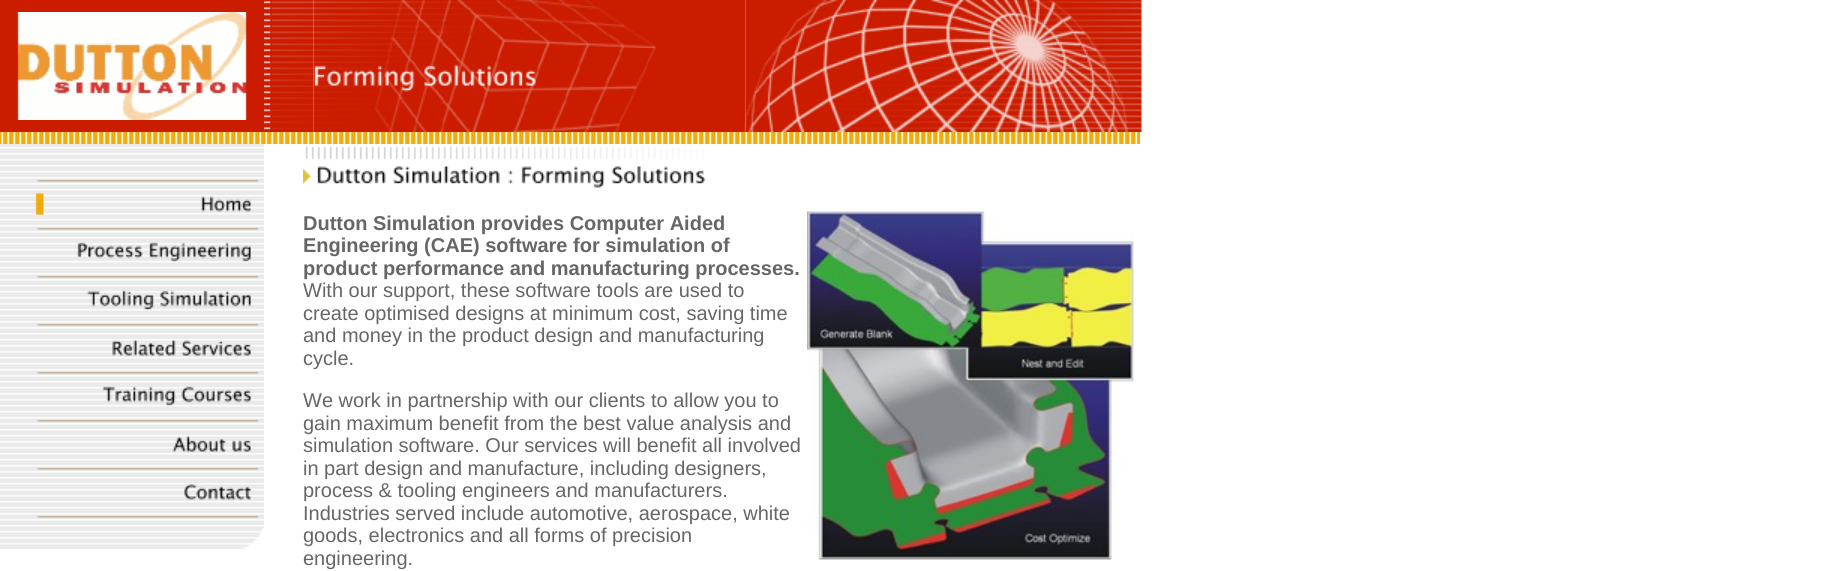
#include <cairo.h>
#include <math.h>
#include <stddef.h>

typedef struct { double x, y; const char *s; } line_t;

static void ink(cairo_t *ctx, unsigned color) {
    cairo_set_source_rgb(ctx, (color >> 16) / 255.0, (color >> 8 & 255) / 255.0, (color & 255) / 255.0);
}

static void paste(cairo_t *ctx, const char *path, double x, double y, double w, double h) {
    cairo_surface_t *image = cairo_image_surface_create_from_png(path);
    cairo_save(ctx);
    cairo_set_source_surface(ctx, image, x, y);
    cairo_rectangle(ctx, x, y, w, h);
    cairo_fill(ctx);
    cairo_restore(ctx);
    cairo_surface_destroy(image);
}

int main(void) {
    cairo_surface_t *surface = cairo_image_surface_create(CAIRO_FORMAT_RGB24, 1833, 571);
    cairo_t *ctx = cairo_create(surface);
    cairo_font_options_t *options = cairo_font_options_create();
    cairo_font_options_set_hint_metrics(options, CAIRO_HINT_METRICS_OFF);
    cairo_font_options_set_hint_style(options, CAIRO_HINT_STYLE_NONE);
    cairo_set_font_options(ctx, options);
    cairo_set_miter_limit(ctx, 4);
    ink(ctx, 0xFFFFFF);
    cairo_paint(ctx);
    ink(ctx, 0xCB1C00);
    cairo_rectangle(ctx, 0, 0, 12, 132);
    cairo_fill(ctx);
    cairo_rectangle(ctx, 12, 0, 240, 12);
    cairo_fill(ctx);
    paste(ctx, "media/1.png", 12, 12, 240, 108);
    cairo_rectangle(ctx, 12, 120, 240, 12);
    cairo_fill(ctx);
    cairo_rectangle(ctx, 252, 0, 12, 132);
    cairo_fill(ctx);
    paste(ctx, "media/2.png", 264, 0, 50, 132);
    paste(ctx, "media/3.png", 313, 0, 433, 48);
    paste(ctx, "media/4.png", 313, 48, 433, 60);
    paste(ctx, "media/5.png", 313, 108, 433, 24);
    paste(ctx, "media/6.png", 745, 0, 397, 132);
    paste(ctx, "media/7.png", 0, 132, 1140, 12);
    paste(ctx, "media/8.png", 0, 144, 264, 24);
    paste(ctx, "media/9.png", 0, 168, 264, 24);
    paste(ctx, "media/10.png", 0, 192, 264, 24);
    paste(ctx, "media/9.png", 0, 216, 264, 24);
    paste(ctx, "media/11.png", 0, 240, 264, 24);
    paste(ctx, "media/9.png", 0, 264, 264, 24);
    paste(ctx, "media/12.png", 0, 288, 264, 24);
    paste(ctx, "media/9.png", 0, 312, 264, 24);
    paste(ctx, "media/13.png", 0, 336, 264, 24);
    paste(ctx, "media/9.png", 0, 360, 264, 24);
    paste(ctx, "media/14.png", 0, 384, 264, 24);
    paste(ctx, "media/9.png", 0, 408, 264, 24);
    paste(ctx, "media/15.png", 0, 432, 264, 24);
    paste(ctx, "media/9.png", 0, 456, 264, 24);
    paste(ctx, "media/16.png", 0, 480, 264, 24);
    paste(ctx, "media/9.png", 0, 504, 264, 24);
    paste(ctx, "media/17.png", 0, 528, 263, 21);
    paste(ctx, "media/18.png", 303, 146, 403, 42);
    cairo_select_font_face(ctx, "Liberation Sans", CAIRO_FONT_SLANT_NORMAL, CAIRO_FONT_WEIGHT_BOLD);
    cairo_set_font_size(ctx, 20);
    ink(ctx, 0x666666);
    cairo_move_to(ctx, 303, 230);
    cairo_show_text(ctx, "Dutton Simulation provides Computer Aided");
    paste(ctx, "media/19.png", 807, 211, 327, 349);
    cairo_move_to(ctx, 303, 252);
    cairo_show_text(ctx, "Engineering (CAE) software for simulation of");
    cairo_move_to(ctx, 303, 275);
    cairo_show_text(ctx, "product performance and manufacturing processes.");
    cairo_select_font_face(ctx, "Liberation Sans", CAIRO_FONT_SLANT_NORMAL, CAIRO_FONT_WEIGHT_NORMAL);
    {
        static const line_t items[] = {
            {303, 297, "With our support, these software tools are used to"},
            {303, 320, "create optimised designs at minimum cost, saving time"},
            {303, 342, "and money in the product design and manufacturing"},
            {303, 365, "cycle."},
            {303, 407, "We work in partnership with our clients to allow you to"},
            {303, 430, "gain maximum benefit from the best value analysis and"},
            {303, 452, "simulation software. Our services will benefit all involved"},
            {303, 475, "in part design and manufacture, including designers,"},
            {303, 497, "process & tooling engineers and manufacturers."},
            {303, 520, "Industries served include automotive, aerospace, white"},
            {303, 542, "goods, electronics and all forms of precision"},
            {303, 565, "engineering."},
        };
        for (size_t i = 0; i < sizeof items / sizeof *items; i++) {
            cairo_move_to(ctx, items[i].x, items[i].y);
            cairo_show_text(ctx, items[i].s);
        }
    }
    cairo_surface_write_to_png(surface, "image.png");
    cairo_font_options_destroy(options);
    cairo_destroy(ctx);
    cairo_surface_destroy(surface);
    return 0;
}
